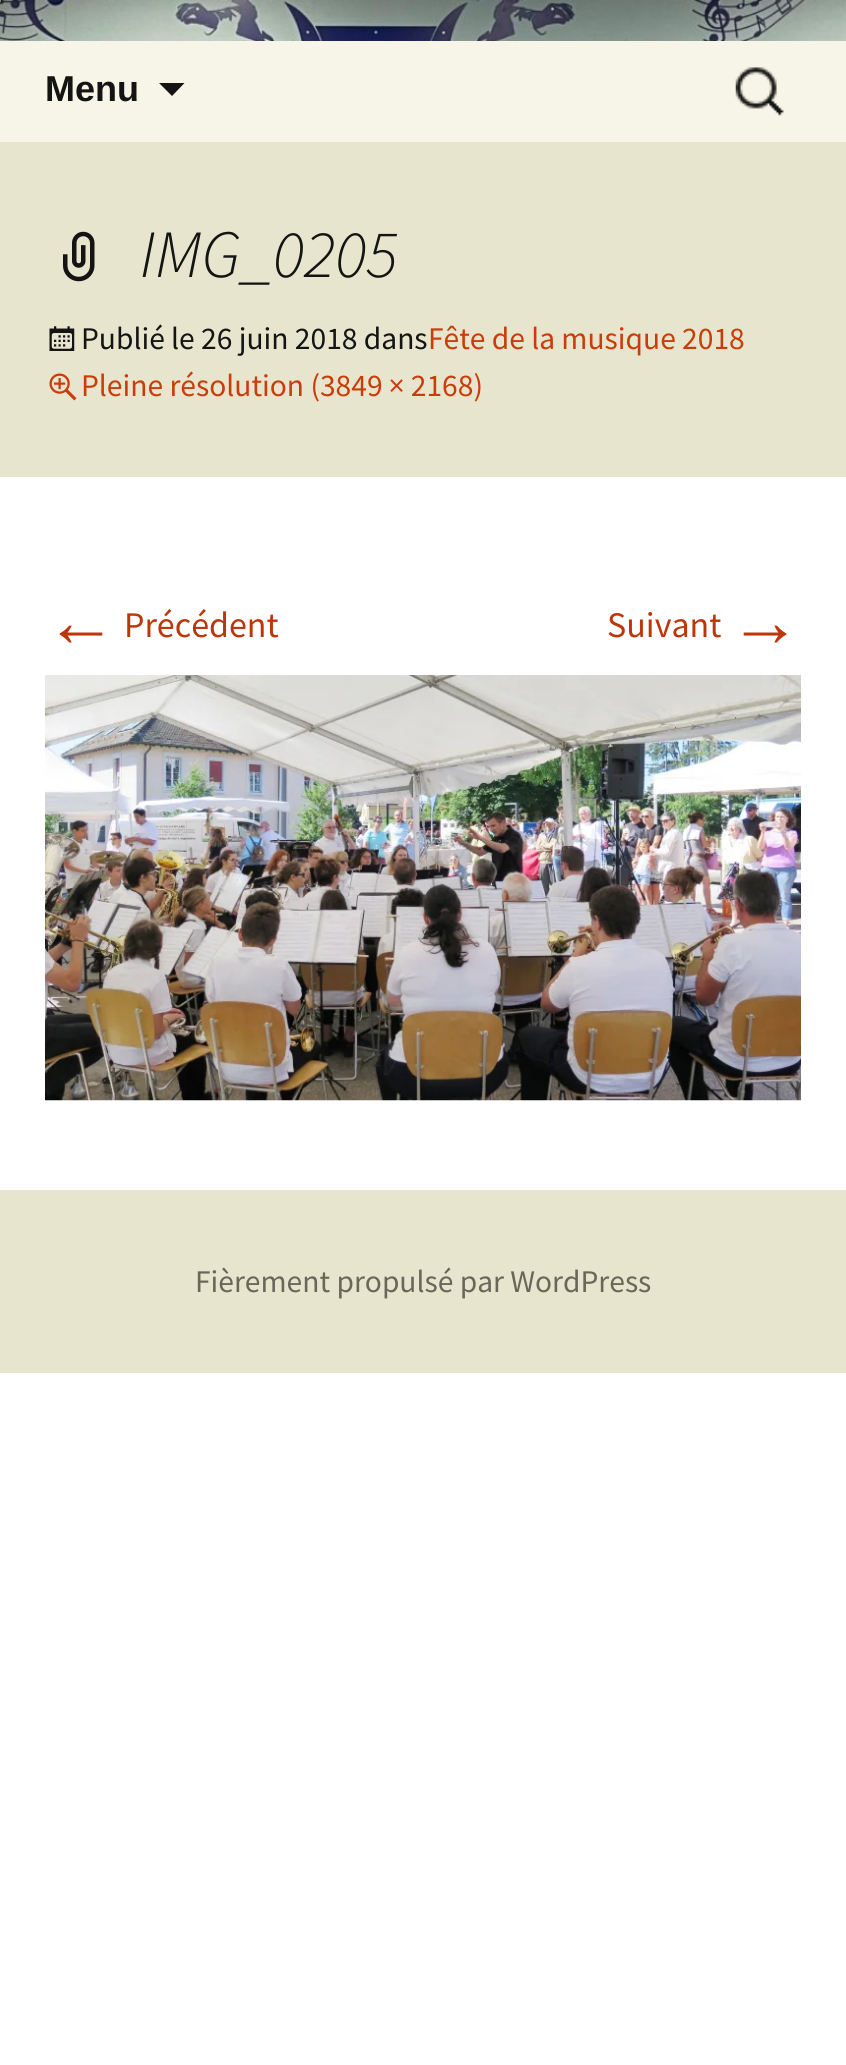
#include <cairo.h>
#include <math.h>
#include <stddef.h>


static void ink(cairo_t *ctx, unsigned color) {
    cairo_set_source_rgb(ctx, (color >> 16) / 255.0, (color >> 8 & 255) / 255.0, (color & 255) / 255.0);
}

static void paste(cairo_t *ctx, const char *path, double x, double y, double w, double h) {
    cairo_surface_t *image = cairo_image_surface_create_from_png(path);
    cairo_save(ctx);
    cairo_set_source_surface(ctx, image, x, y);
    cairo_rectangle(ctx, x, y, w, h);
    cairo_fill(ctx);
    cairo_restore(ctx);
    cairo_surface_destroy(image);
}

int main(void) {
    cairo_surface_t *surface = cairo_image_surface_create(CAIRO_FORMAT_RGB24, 846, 2065);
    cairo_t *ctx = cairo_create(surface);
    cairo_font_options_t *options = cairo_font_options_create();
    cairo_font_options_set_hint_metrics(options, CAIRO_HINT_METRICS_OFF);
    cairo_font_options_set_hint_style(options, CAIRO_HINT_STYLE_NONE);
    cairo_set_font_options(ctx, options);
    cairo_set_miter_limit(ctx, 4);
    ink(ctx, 0xFFFFFF);
    cairo_paint(ctx);
    paste(ctx, "media/1.png", 0, 0, 846, 41);
    ink(ctx, 0xF7F5E7);
    cairo_rectangle(ctx, 0, 41, 846, 101);
    cairo_fill(ctx);
    cairo_select_font_face(ctx, "Liberation Sans", CAIRO_FONT_SLANT_NORMAL, CAIRO_FONT_WEIGHT_BOLD);
    cairo_set_font_size(ctx, 36);
    ink(ctx, 0x141412);
    cairo_move_to(ctx, 45, 101);
    cairo_show_text(ctx, "Menu");
    cairo_new_path(ctx);
    cairo_move_to(ctx, 159, 83);
    cairo_line_to(ctx, 184.5, 83);
    cairo_line_to(ctx, 172, 96);
    cairo_close_path(ctx);
    cairo_fill(ctx);
    paste(ctx, "media/2.png", 735, 67, 49, 49);
    ink(ctx, 0xE8E5CE);
    cairo_rectangle(ctx, 0, 142, 846, 335);
    cairo_fill(ctx);
    paste(ctx, "media/3.png", 63, 231, 32, 51);
    cairo_select_font_face(ctx, "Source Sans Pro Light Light", CAIRO_FONT_SLANT_ITALIC, CAIRO_FONT_WEIGHT_NORMAL);
    cairo_set_font_size(ctx, 67.5);
    ink(ctx, 0x141412);
    cairo_move_to(ctx, 140, 277);
    cairo_show_text(ctx, "IMG_0205");
    paste(ctx, "media/4.png", 49, 326, 26, 25);
    cairo_select_font_face(ctx, "Source Sans Pro", CAIRO_FONT_SLANT_NORMAL, CAIRO_FONT_WEIGHT_NORMAL);
    cairo_set_font_size(ctx, 31.5);
    cairo_move_to(ctx, 81, 349);
    cairo_show_text(ctx, "Publié le 26 juin 2018 dans");
    ink(ctx, 0xCA3C08);
    cairo_move_to(ctx, 428, 349);
    cairo_show_text(ctx, "Fête de la musique 2018");
    paste(ctx, "media/5.png", 49, 373, 28, 28);
    cairo_move_to(ctx, 81, 396);
    cairo_show_text(ctx, "Pleine résolution (3849 × 2168)");
    cairo_select_font_face(ctx, "Liberation Sans", CAIRO_FONT_SLANT_NORMAL, CAIRO_FONT_WEIGHT_NORMAL);
    cairo_set_font_size(ctx, 72);
    ink(ctx, 0xBC360A);
    cairo_move_to(ctx, 45, 646);
    cairo_show_text(ctx, "←");
    cairo_select_font_face(ctx, "Source Sans Pro", CAIRO_FONT_SLANT_NORMAL, CAIRO_FONT_WEIGHT_NORMAL);
    cairo_set_font_size(ctx, 36);
    cairo_move_to(ctx, 124, 637);
    cairo_show_text(ctx, "Précédent");
    cairo_move_to(ctx, 607, 637);
    cairo_show_text(ctx, "Suivant");
    cairo_select_font_face(ctx, "Liberation Sans", CAIRO_FONT_SLANT_NORMAL, CAIRO_FONT_WEIGHT_NORMAL);
    cairo_set_font_size(ctx, 72);
    cairo_move_to(ctx, 729, 646);
    cairo_show_text(ctx, "→");
    paste(ctx, "media/6.png", 45, 675, 756, 426);
    ink(ctx, 0xE8E5CE);
    cairo_rectangle(ctx, 0, 1190, 846, 183);
    cairo_fill(ctx);
    cairo_select_font_face(ctx, "Source Sans Pro", CAIRO_FONT_SLANT_NORMAL, CAIRO_FONT_WEIGHT_NORMAL);
    cairo_set_font_size(ctx, 31.5);
    ink(ctx, 0x686758);
    cairo_move_to(ctx, 195, 1292);
    cairo_show_text(ctx, "Fièrement propulsé par WordPress");
    cairo_surface_write_to_png(surface, "image.png");
    cairo_font_options_destroy(options);
    cairo_destroy(ctx);
    cairo_surface_destroy(surface);
    return 0;
}
